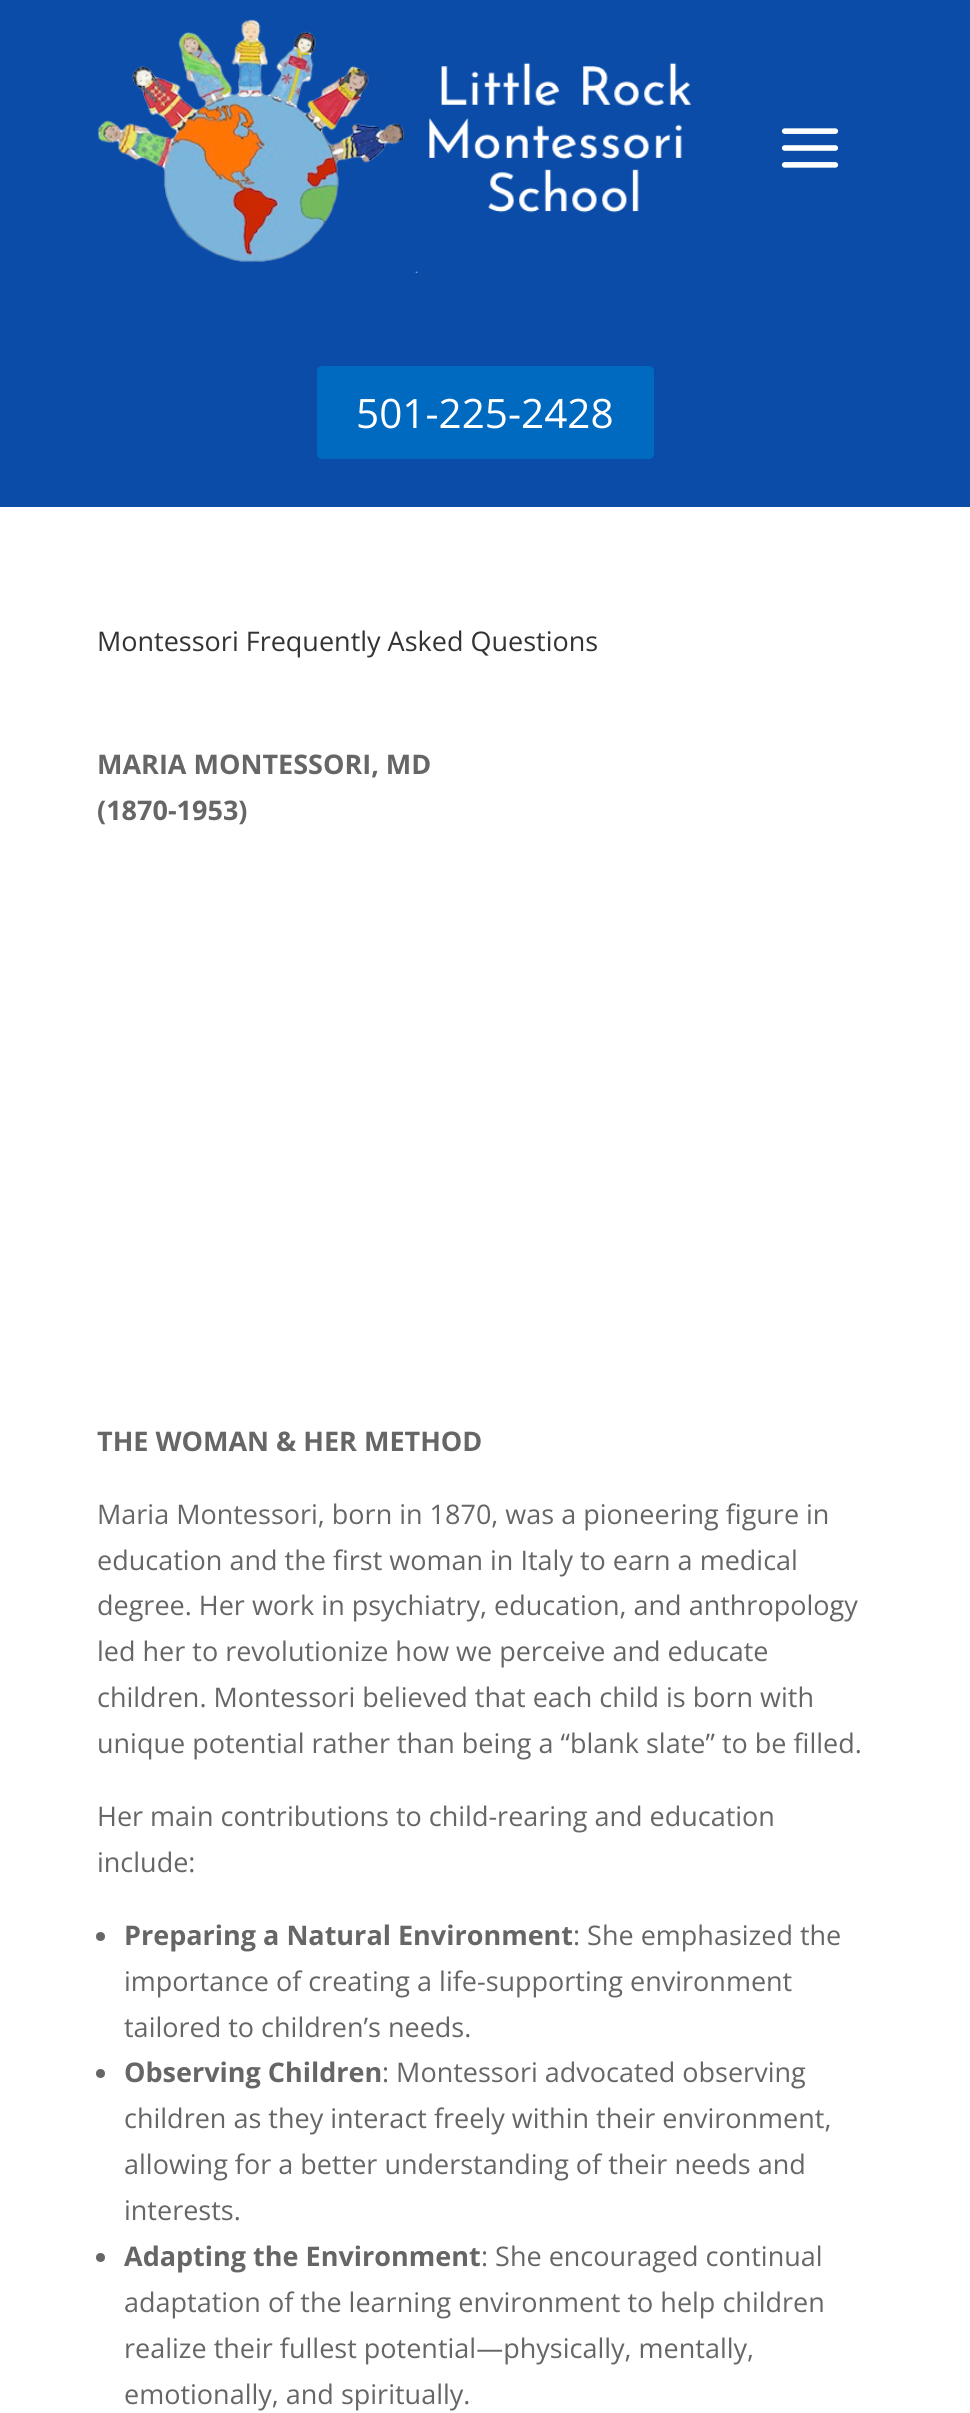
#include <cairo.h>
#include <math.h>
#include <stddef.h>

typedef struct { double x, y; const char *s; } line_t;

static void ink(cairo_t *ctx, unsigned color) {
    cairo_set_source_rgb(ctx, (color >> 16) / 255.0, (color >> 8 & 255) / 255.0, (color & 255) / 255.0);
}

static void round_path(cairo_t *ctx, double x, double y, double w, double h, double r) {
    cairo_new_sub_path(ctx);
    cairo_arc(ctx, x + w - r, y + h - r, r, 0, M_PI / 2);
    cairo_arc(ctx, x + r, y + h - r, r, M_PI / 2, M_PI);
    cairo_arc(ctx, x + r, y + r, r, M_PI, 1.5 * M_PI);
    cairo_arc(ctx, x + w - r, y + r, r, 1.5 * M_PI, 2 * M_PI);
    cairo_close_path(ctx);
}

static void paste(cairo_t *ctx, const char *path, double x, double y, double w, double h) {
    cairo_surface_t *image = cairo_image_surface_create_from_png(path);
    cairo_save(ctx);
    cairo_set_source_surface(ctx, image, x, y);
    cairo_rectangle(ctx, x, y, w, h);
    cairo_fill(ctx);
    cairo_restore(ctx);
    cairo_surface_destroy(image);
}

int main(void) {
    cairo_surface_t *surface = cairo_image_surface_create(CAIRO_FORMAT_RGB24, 970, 2413);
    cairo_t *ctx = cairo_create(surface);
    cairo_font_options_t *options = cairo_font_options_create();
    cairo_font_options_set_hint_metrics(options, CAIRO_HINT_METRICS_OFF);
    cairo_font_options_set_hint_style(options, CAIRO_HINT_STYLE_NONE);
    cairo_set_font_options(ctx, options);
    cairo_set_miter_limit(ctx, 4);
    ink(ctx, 0xFFFFFF);
    cairo_paint(ctx);
    ink(ctx, 0x0A4CA8);
    cairo_rectangle(ctx, 0, 0, 970, 507);
    cairo_fill(ctx);
    paste(ctx, "media/1.png", 97, 19, 595, 254);
    paste(ctx, "media/2.png", 781, 128, 58, 40);
    ink(ctx, 0x006AC1);
    round_path(ctx, 317, 366, 337, 93, 5);
    cairo_fill(ctx);
    cairo_select_font_face(ctx, "Open Sans", CAIRO_FONT_SLANT_NORMAL, CAIRO_FONT_WEIGHT_NORMAL);
    cairo_set_font_size(ctx, 40.5);
    ink(ctx, 0xFFFFFF);
    cairo_move_to(ctx, 356, 428);
    cairo_show_text(ctx, "501-225-2428");
    cairo_set_font_size(ctx, 27);
    ink(ctx, 0x333333);
    cairo_move_to(ctx, 97, 651);
    cairo_show_text(ctx, "Montessori Frequently Asked Questions");
    cairo_select_font_face(ctx, "Open Sans", CAIRO_FONT_SLANT_NORMAL, CAIRO_FONT_WEIGHT_BOLD);
    ink(ctx, 0x666666);
    {
        static const line_t items[] = {
            {97, 774, "MARIA MONTESSORI, MD"},
            {97, 820, "(1870-1953)"},
            {97, 1451, "THE WOMAN & HER METHOD"},
        };
        for (size_t i = 0; i < sizeof items / sizeof *items; i++) {
            cairo_move_to(ctx, items[i].x, items[i].y);
            cairo_show_text(ctx, items[i].s);
        }
    }
    cairo_select_font_face(ctx, "Open Sans", CAIRO_FONT_SLANT_NORMAL, CAIRO_FONT_WEIGHT_NORMAL);
    {
        static const line_t items[] = {
            {97, 1524, "Maria Montessori, born in 1870, was a pioneering figure in"},
            {97, 1570, "education and the first woman in Italy to earn a medical"},
            {97, 1615, "degree. Her work in psychiatry, education, and anthropology"},
            {97, 1661, "led her to revolutionize how we perceive and educate"},
            {97, 1707, "children. Montessori believed that each child is born with"},
            {97, 1753, "unique potential rather than being a “blank slate” to be filled."},
            {97, 1826, "Her main contributions to child-rearing and education"},
            {97, 1872, "include:"},
        };
        for (size_t i = 0; i < sizeof items / sizeof *items; i++) {
            cairo_move_to(ctx, items[i].x, items[i].y);
            cairo_show_text(ctx, items[i].s);
        }
    }
    cairo_new_path(ctx);
    cairo_arc(ctx, 100.5, 1936.5, 4.5, 0, 2 * M_PI);
    cairo_fill(ctx);
    cairo_select_font_face(ctx, "Open Sans", CAIRO_FONT_SLANT_NORMAL, CAIRO_FONT_WEIGHT_BOLD);
    cairo_move_to(ctx, 124, 1945);
    cairo_show_text(ctx, "Preparing a Natural Environment");
    cairo_select_font_face(ctx, "Open Sans", CAIRO_FONT_SLANT_NORMAL, CAIRO_FONT_WEIGHT_NORMAL);
    {
        static const line_t items[] = {
            {573, 1945, ": She emphasized the"},
            {124, 1991, "importance of creating a life-supporting environment"},
            {124, 2037, "tailored to children’s needs."},
        };
        for (size_t i = 0; i < sizeof items / sizeof *items; i++) {
            cairo_move_to(ctx, items[i].x, items[i].y);
            cairo_show_text(ctx, items[i].s);
        }
    }
    cairo_new_path(ctx);
    cairo_arc(ctx, 100.5, 2073.5, 4.5, 0, 2 * M_PI);
    cairo_fill(ctx);
    cairo_select_font_face(ctx, "Open Sans", CAIRO_FONT_SLANT_NORMAL, CAIRO_FONT_WEIGHT_BOLD);
    cairo_move_to(ctx, 124, 2082);
    cairo_show_text(ctx, "Observing Children");
    cairo_select_font_face(ctx, "Open Sans", CAIRO_FONT_SLANT_NORMAL, CAIRO_FONT_WEIGHT_NORMAL);
    {
        static const line_t items[] = {
            {382, 2082, ": Montessori advocated observing"},
            {124, 2128, "children as they interact freely within their environment,"},
            {124, 2174, "allowing for a better understanding of their needs and"},
            {124, 2220, "interests."},
        };
        for (size_t i = 0; i < sizeof items / sizeof *items; i++) {
            cairo_move_to(ctx, items[i].x, items[i].y);
            cairo_show_text(ctx, items[i].s);
        }
    }
    cairo_new_path(ctx);
    cairo_arc(ctx, 100.5, 2257.5, 4.5, 0, 2 * M_PI);
    cairo_fill(ctx);
    cairo_select_font_face(ctx, "Open Sans", CAIRO_FONT_SLANT_NORMAL, CAIRO_FONT_WEIGHT_BOLD);
    cairo_move_to(ctx, 124, 2266);
    cairo_show_text(ctx, "Adapting the Environment");
    cairo_select_font_face(ctx, "Open Sans", CAIRO_FONT_SLANT_NORMAL, CAIRO_FONT_WEIGHT_NORMAL);
    {
        static const line_t items[] = {
            {481, 2266, ": She encouraged continual"},
            {124, 2312, "adaptation of the learning environment to help children"},
            {124, 2358, "realize their fullest potential—physically, mentally,"},
            {124, 2404, "emotionally, and spiritually."},
        };
        for (size_t i = 0; i < sizeof items / sizeof *items; i++) {
            cairo_move_to(ctx, items[i].x, items[i].y);
            cairo_show_text(ctx, items[i].s);
        }
    }
    cairo_surface_write_to_png(surface, "image.png");
    cairo_font_options_destroy(options);
    cairo_destroy(ctx);
    cairo_surface_destroy(surface);
    return 0;
}
